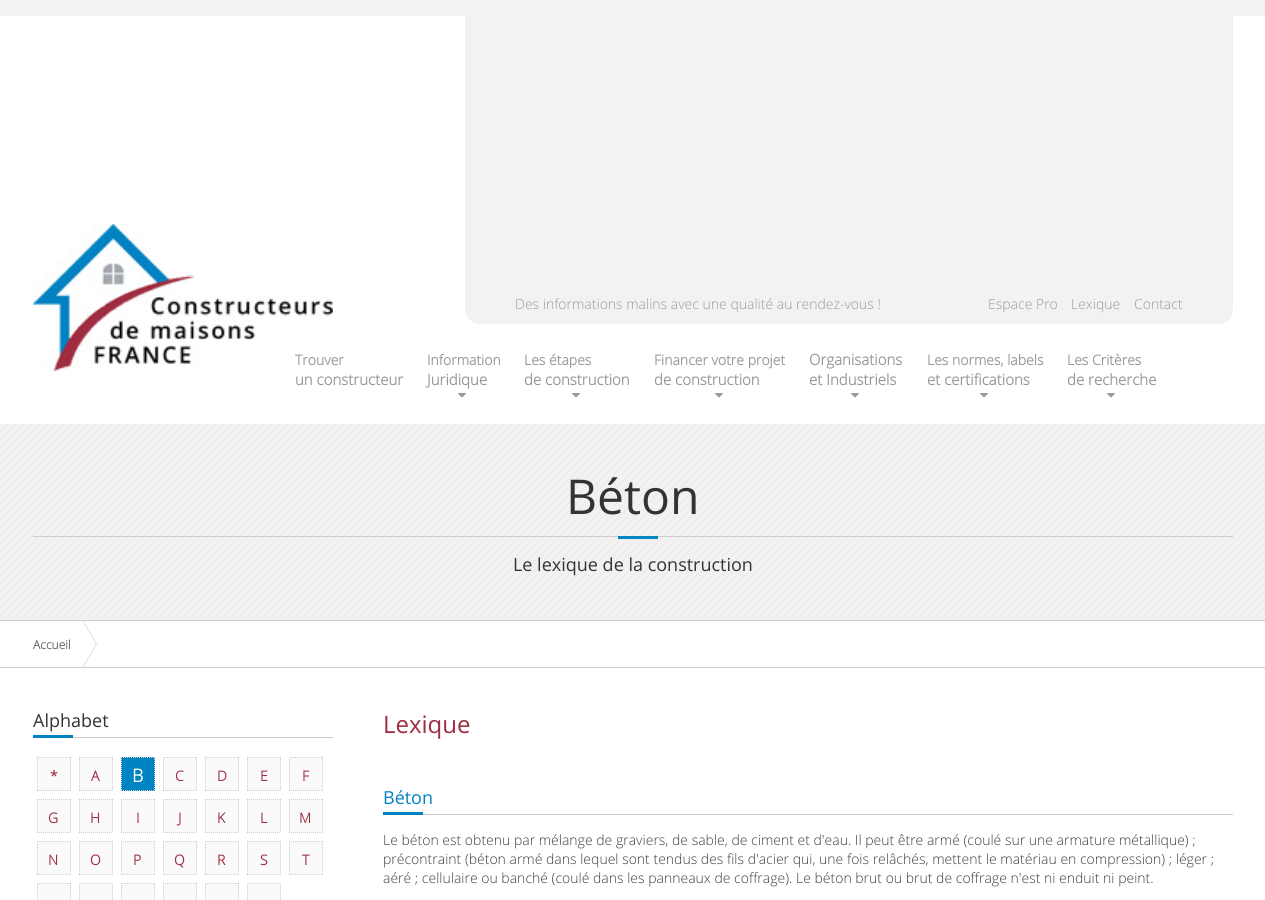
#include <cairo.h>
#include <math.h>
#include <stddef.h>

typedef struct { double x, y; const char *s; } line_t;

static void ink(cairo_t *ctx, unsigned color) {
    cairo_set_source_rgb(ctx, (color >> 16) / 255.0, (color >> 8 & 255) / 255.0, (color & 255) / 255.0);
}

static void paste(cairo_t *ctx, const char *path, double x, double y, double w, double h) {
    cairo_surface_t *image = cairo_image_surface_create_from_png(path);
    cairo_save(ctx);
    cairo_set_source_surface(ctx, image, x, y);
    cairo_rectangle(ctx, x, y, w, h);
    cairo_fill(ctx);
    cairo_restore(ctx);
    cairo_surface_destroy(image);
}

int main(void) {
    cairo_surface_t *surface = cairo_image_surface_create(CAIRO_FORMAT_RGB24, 1265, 900);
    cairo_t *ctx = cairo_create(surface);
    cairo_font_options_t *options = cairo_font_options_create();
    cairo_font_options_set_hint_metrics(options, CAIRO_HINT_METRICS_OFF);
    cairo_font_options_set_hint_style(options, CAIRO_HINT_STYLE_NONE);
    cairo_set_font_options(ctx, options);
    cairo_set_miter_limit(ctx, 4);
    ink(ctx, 0xFFFFFF);
    cairo_paint(ctx);
    ink(ctx, 0xF2F2F2);
    cairo_rectangle(ctx, 0, 0, 1265, 16);
    cairo_fill(ctx);
    cairo_rectangle(ctx, 465, 16, 768, 268);
    cairo_fill(ctx);
    cairo_new_path(ctx);
    cairo_move_to(ctx, 465, 284);
    cairo_line_to(ctx, 1233, 284);
    cairo_line_to(ctx, 1233, 309);
    cairo_curve_to(ctx, 1233, 317.5, 1226.5, 324, 1218, 324);
    cairo_line_to(ctx, 480, 324);
    cairo_curve_to(ctx, 471.5, 324, 465, 317.5, 465, 309);
    cairo_close_path(ctx);
    cairo_fill(ctx);
    cairo_select_font_face(ctx, "Open Sans Light", CAIRO_FONT_SLANT_NORMAL, CAIRO_FONT_WEIGHT_NORMAL);
    cairo_set_font_size(ctx, 14);
    ink(ctx, 0x999999);
    {
        static const line_t items[] = {
            {515, 309, "Des informations malins avec une qualité au rendez-vous !"},
            {988, 309, "Espace Pro"},
            {1071, 309, "Lexique"},
            {1134, 309, "Contact"},
        };
        for (size_t i = 0; i < sizeof items / sizeof *items; i++) {
            cairo_move_to(ctx, items[i].x, items[i].y);
            cairo_show_text(ctx, items[i].s);
        }
    }
    paste(ctx, "media/1.png", 33, 224, 300, 147);
    cairo_select_font_face(ctx, "Open Sans", CAIRO_FONT_SLANT_NORMAL, CAIRO_FONT_WEIGHT_BOLD);
    cairo_move_to(ctx, 295, 365);
    cairo_show_text(ctx, "Trouver");
    cairo_set_font_size(ctx, 15);
    cairo_move_to(ctx, 295, 385);
    cairo_show_text(ctx, "un constructeur");
    cairo_set_font_size(ctx, 14);
    cairo_move_to(ctx, 427, 365);
    cairo_show_text(ctx, "Information");
    cairo_set_font_size(ctx, 15);
    cairo_move_to(ctx, 427, 385);
    cairo_show_text(ctx, "Juridique");
    paste(ctx, "media/2.png", 458, 393, 8, 5);
    cairo_set_font_size(ctx, 14);
    cairo_move_to(ctx, 524, 365);
    cairo_show_text(ctx, "Les étapes");
    cairo_set_font_size(ctx, 15);
    cairo_move_to(ctx, 524, 385);
    cairo_show_text(ctx, "de construction");
    paste(ctx, "media/2.png", 572, 393, 8, 5);
    cairo_set_font_size(ctx, 14);
    cairo_move_to(ctx, 654, 365);
    cairo_show_text(ctx, "Financer votre projet");
    cairo_set_font_size(ctx, 15);
    cairo_move_to(ctx, 654, 385);
    cairo_show_text(ctx, "de construction");
    paste(ctx, "media/2.png", 715, 393, 8, 5);
    cairo_move_to(ctx, 809, 365);
    cairo_show_text(ctx, "Organisations");
    cairo_move_to(ctx, 809, 385);
    cairo_show_text(ctx, "et Industriels");
    paste(ctx, "media/2.png", 851, 393, 8, 5);
    cairo_set_font_size(ctx, 14);
    cairo_move_to(ctx, 927, 365);
    cairo_show_text(ctx, "Les normes, labels");
    cairo_set_font_size(ctx, 15);
    cairo_move_to(ctx, 927, 385);
    cairo_show_text(ctx, "et certifications");
    paste(ctx, "media/2.png", 980, 393, 8, 5);
    cairo_set_font_size(ctx, 14);
    cairo_move_to(ctx, 1067, 365);
    cairo_show_text(ctx, "Les Critères");
    cairo_set_font_size(ctx, 15);
    cairo_move_to(ctx, 1067, 385);
    cairo_show_text(ctx, "de recherche");
    paste(ctx, "media/2.png", 1107, 393, 8, 5);
    paste(ctx, "media/3.png", 0, 424, 1265, 196);
    cairo_select_font_face(ctx, "Open Sans", CAIRO_FONT_SLANT_NORMAL, CAIRO_FONT_WEIGHT_NORMAL);
    cairo_set_font_size(ctx, 48);
    ink(ctx, 0x333333);
    cairo_move_to(ctx, 566, 514);
    cairo_show_text(ctx, "Béton");
    ink(ctx, 0xCCCCCC);
    cairo_rectangle(ctx, 33, 536, 1200, 1);
    cairo_fill(ctx);
    ink(ctx, 0x0083C1);
    cairo_rectangle(ctx, 618, 536, 40, 3);
    cairo_fill(ctx);
    cairo_set_font_size(ctx, 18);
    ink(ctx, 0x333333);
    cairo_move_to(ctx, 513, 571);
    cairo_show_text(ctx, "Le lexique de la construction");
    ink(ctx, 0xCCCCCC);
    cairo_rectangle(ctx, 0, 620, 1265, 1);
    cairo_fill(ctx);
    cairo_rectangle(ctx, 0, 667, 1265, 1);
    cairo_fill(ctx);
    cairo_select_font_face(ctx, "Open Sans", CAIRO_FONT_SLANT_NORMAL, CAIRO_FONT_WEIGHT_BOLD);
    cairo_set_font_size(ctx, 12);
    ink(ctx, 0x666666);
    cairo_move_to(ctx, 33, 649);
    cairo_show_text(ctx, "Accueil");
    ink(ctx, 0xE2E2E2);
    cairo_new_path(ctx);
    cairo_move_to(ctx, 82.5, 621);
    cairo_line_to(ctx, 83.5, 620.5);
    cairo_line_to(ctx, 97, 644);
    cairo_line_to(ctx, 96, 644.5);
    cairo_close_path(ctx);
    cairo_fill(ctx);
    cairo_new_path(ctx);
    cairo_move_to(ctx, 96, 643.5);
    cairo_line_to(ctx, 97, 644);
    cairo_line_to(ctx, 83.5, 667.5);
    cairo_line_to(ctx, 82.5, 667);
    cairo_close_path(ctx);
    cairo_fill(ctx);
    ink(ctx, 0xCCCCCC);
    cairo_rectangle(ctx, 73, 737, 260, 1);
    cairo_fill(ctx);
    cairo_select_font_face(ctx, "Open Sans", CAIRO_FONT_SLANT_NORMAL, CAIRO_FONT_WEIGHT_NORMAL);
    cairo_set_font_size(ctx, 18);
    ink(ctx, 0x333333);
    cairo_move_to(ctx, 33, 727);
    cairo_show_text(ctx, "Alphabet");
    ink(ctx, 0x0083C1);
    cairo_rectangle(ctx, 33, 735, 40, 3);
    cairo_fill(ctx);
    ink(ctx, 0xFAFAFA);
    cairo_rectangle(ctx, 37, 757, 34, 34);
    cairo_fill(ctx);
    cairo_new_path(ctx);
    cairo_move_to(ctx, 37, 757.5);
    cairo_line_to(ctx, 71, 757.5);
    cairo_move_to(ctx, 70.5, 757);
    cairo_line_to(ctx, 70.5, 791);
    cairo_move_to(ctx, 37, 790.5);
    cairo_line_to(ctx, 71, 790.5);
    cairo_move_to(ctx, 37.5, 757);
    cairo_line_to(ctx, 37.5, 791);
    ink(ctx, 0xCCCCCC);
    cairo_set_line_width(ctx, 1);
    cairo_set_dash(ctx, (double[]){1, 1}, 2, 0);
    cairo_stroke(ctx);
    cairo_select_font_face(ctx, "Open Sans", CAIRO_FONT_SLANT_NORMAL, CAIRO_FONT_WEIGHT_BOLD);
    cairo_set_font_size(ctx, 14);
    ink(ctx, 0x9E2D41);
    cairo_move_to(ctx, 50, 781);
    cairo_show_text(ctx, "*");
    ink(ctx, 0xFAFAFA);
    cairo_rectangle(ctx, 79, 757, 34, 34);
    cairo_fill(ctx);
    cairo_new_path(ctx);
    cairo_move_to(ctx, 79, 757.5);
    cairo_line_to(ctx, 113, 757.5);
    cairo_move_to(ctx, 112.5, 757);
    cairo_line_to(ctx, 112.5, 791);
    cairo_move_to(ctx, 79, 790.5);
    cairo_line_to(ctx, 113, 790.5);
    cairo_move_to(ctx, 79.5, 757);
    cairo_line_to(ctx, 79.5, 791);
    ink(ctx, 0xCCCCCC);
    cairo_stroke(ctx);
    ink(ctx, 0x9E2D41);
    cairo_move_to(ctx, 91, 781);
    cairo_show_text(ctx, "A");
    ink(ctx, 0x0083C1);
    cairo_rectangle(ctx, 121, 757, 34, 34);
    cairo_fill(ctx);
    cairo_new_path(ctx);
    cairo_move_to(ctx, 121, 757.5);
    cairo_line_to(ctx, 155, 757.5);
    cairo_move_to(ctx, 154.5, 757);
    cairo_line_to(ctx, 154.5, 791);
    cairo_move_to(ctx, 121, 790.5);
    cairo_line_to(ctx, 155, 790.5);
    cairo_move_to(ctx, 121.5, 757);
    cairo_line_to(ctx, 121.5, 791);
    ink(ctx, 0xCCCCCC);
    cairo_stroke(ctx);
    cairo_set_font_size(ctx, 18);
    ink(ctx, 0xFFFFFF);
    cairo_move_to(ctx, 132, 782);
    cairo_show_text(ctx, "B");
    ink(ctx, 0xFAFAFA);
    cairo_rectangle(ctx, 163, 757, 34, 34);
    cairo_fill(ctx);
    cairo_new_path(ctx);
    cairo_move_to(ctx, 163, 757.5);
    cairo_line_to(ctx, 197, 757.5);
    cairo_move_to(ctx, 196.5, 757);
    cairo_line_to(ctx, 196.5, 791);
    cairo_move_to(ctx, 163, 790.5);
    cairo_line_to(ctx, 197, 790.5);
    cairo_move_to(ctx, 163.5, 757);
    cairo_line_to(ctx, 163.5, 791);
    ink(ctx, 0xCCCCCC);
    cairo_stroke(ctx);
    cairo_set_font_size(ctx, 14);
    ink(ctx, 0x9E2D41);
    cairo_move_to(ctx, 175, 781);
    cairo_show_text(ctx, "C");
    ink(ctx, 0xFAFAFA);
    cairo_rectangle(ctx, 205, 757, 34, 34);
    cairo_fill(ctx);
    cairo_new_path(ctx);
    cairo_move_to(ctx, 205, 757.5);
    cairo_line_to(ctx, 239, 757.5);
    cairo_move_to(ctx, 238.5, 757);
    cairo_line_to(ctx, 238.5, 791);
    cairo_move_to(ctx, 205, 790.5);
    cairo_line_to(ctx, 239, 790.5);
    cairo_move_to(ctx, 205.5, 757);
    cairo_line_to(ctx, 205.5, 791);
    ink(ctx, 0xCCCCCC);
    cairo_stroke(ctx);
    ink(ctx, 0x9E2D41);
    cairo_move_to(ctx, 217, 781);
    cairo_show_text(ctx, "D");
    ink(ctx, 0xFAFAFA);
    cairo_rectangle(ctx, 247, 757, 34, 34);
    cairo_fill(ctx);
    cairo_new_path(ctx);
    cairo_move_to(ctx, 247, 757.5);
    cairo_line_to(ctx, 281, 757.5);
    cairo_move_to(ctx, 280.5, 757);
    cairo_line_to(ctx, 280.5, 791);
    cairo_move_to(ctx, 247, 790.5);
    cairo_line_to(ctx, 281, 790.5);
    cairo_move_to(ctx, 247.5, 757);
    cairo_line_to(ctx, 247.5, 791);
    ink(ctx, 0xCCCCCC);
    cairo_stroke(ctx);
    ink(ctx, 0x9E2D41);
    cairo_move_to(ctx, 260, 781);
    cairo_show_text(ctx, "E");
    ink(ctx, 0xFAFAFA);
    cairo_rectangle(ctx, 289, 757, 34, 34);
    cairo_fill(ctx);
    cairo_new_path(ctx);
    cairo_move_to(ctx, 289, 757.5);
    cairo_line_to(ctx, 323, 757.5);
    cairo_move_to(ctx, 322.5, 757);
    cairo_line_to(ctx, 322.5, 791);
    cairo_move_to(ctx, 289, 790.5);
    cairo_line_to(ctx, 323, 790.5);
    cairo_move_to(ctx, 289.5, 757);
    cairo_line_to(ctx, 289.5, 791);
    ink(ctx, 0xCCCCCC);
    cairo_stroke(ctx);
    ink(ctx, 0x9E2D41);
    cairo_move_to(ctx, 302, 781);
    cairo_show_text(ctx, "F");
    ink(ctx, 0xFAFAFA);
    cairo_rectangle(ctx, 37, 799, 34, 34);
    cairo_fill(ctx);
    cairo_new_path(ctx);
    cairo_move_to(ctx, 37, 799.5);
    cairo_line_to(ctx, 71, 799.5);
    cairo_move_to(ctx, 70.5, 799);
    cairo_line_to(ctx, 70.5, 833);
    cairo_move_to(ctx, 37, 832.5);
    cairo_line_to(ctx, 71, 832.5);
    cairo_move_to(ctx, 37.5, 799);
    cairo_line_to(ctx, 37.5, 833);
    ink(ctx, 0xCCCCCC);
    cairo_stroke(ctx);
    ink(ctx, 0x9E2D41);
    cairo_move_to(ctx, 48, 823);
    cairo_show_text(ctx, "G");
    ink(ctx, 0xFAFAFA);
    cairo_rectangle(ctx, 79, 799, 34, 34);
    cairo_fill(ctx);
    cairo_new_path(ctx);
    cairo_move_to(ctx, 79, 799.5);
    cairo_line_to(ctx, 113, 799.5);
    cairo_move_to(ctx, 112.5, 799);
    cairo_line_to(ctx, 112.5, 833);
    cairo_move_to(ctx, 79, 832.5);
    cairo_line_to(ctx, 113, 832.5);
    cairo_move_to(ctx, 79.5, 799);
    cairo_line_to(ctx, 79.5, 833);
    ink(ctx, 0xCCCCCC);
    cairo_stroke(ctx);
    ink(ctx, 0x9E2D41);
    cairo_move_to(ctx, 90, 823);
    cairo_show_text(ctx, "H");
    ink(ctx, 0xFAFAFA);
    cairo_rectangle(ctx, 121, 799, 34, 34);
    cairo_fill(ctx);
    cairo_new_path(ctx);
    cairo_move_to(ctx, 121, 799.5);
    cairo_line_to(ctx, 155, 799.5);
    cairo_move_to(ctx, 154.5, 799);
    cairo_line_to(ctx, 154.5, 833);
    cairo_move_to(ctx, 121, 832.5);
    cairo_line_to(ctx, 155, 832.5);
    cairo_move_to(ctx, 121.5, 799);
    cairo_line_to(ctx, 121.5, 833);
    ink(ctx, 0xCCCCCC);
    cairo_stroke(ctx);
    ink(ctx, 0x9E2D41);
    cairo_move_to(ctx, 136, 823);
    cairo_show_text(ctx, "I");
    ink(ctx, 0xFAFAFA);
    cairo_rectangle(ctx, 163, 799, 34, 34);
    cairo_fill(ctx);
    cairo_new_path(ctx);
    cairo_move_to(ctx, 163, 799.5);
    cairo_line_to(ctx, 197, 799.5);
    cairo_move_to(ctx, 196.5, 799);
    cairo_line_to(ctx, 196.5, 833);
    cairo_move_to(ctx, 163, 832.5);
    cairo_line_to(ctx, 197, 832.5);
    cairo_move_to(ctx, 163.5, 799);
    cairo_line_to(ctx, 163.5, 833);
    ink(ctx, 0xCCCCCC);
    cairo_stroke(ctx);
    ink(ctx, 0x9E2D41);
    cairo_move_to(ctx, 178, 823);
    cairo_show_text(ctx, "J");
    ink(ctx, 0xFAFAFA);
    cairo_rectangle(ctx, 205, 799, 34, 34);
    cairo_fill(ctx);
    cairo_new_path(ctx);
    cairo_move_to(ctx, 205, 799.5);
    cairo_line_to(ctx, 239, 799.5);
    cairo_move_to(ctx, 238.5, 799);
    cairo_line_to(ctx, 238.5, 833);
    cairo_move_to(ctx, 205, 832.5);
    cairo_line_to(ctx, 239, 832.5);
    cairo_move_to(ctx, 205.5, 799);
    cairo_line_to(ctx, 205.5, 833);
    ink(ctx, 0xCCCCCC);
    cairo_stroke(ctx);
    ink(ctx, 0x9E2D41);
    cairo_move_to(ctx, 217, 823);
    cairo_show_text(ctx, "K");
    ink(ctx, 0xFAFAFA);
    cairo_rectangle(ctx, 247, 799, 34, 34);
    cairo_fill(ctx);
    cairo_new_path(ctx);
    cairo_move_to(ctx, 247, 799.5);
    cairo_line_to(ctx, 281, 799.5);
    cairo_move_to(ctx, 280.5, 799);
    cairo_line_to(ctx, 280.5, 833);
    cairo_move_to(ctx, 247, 832.5);
    cairo_line_to(ctx, 281, 832.5);
    cairo_move_to(ctx, 247.5, 799);
    cairo_line_to(ctx, 247.5, 833);
    ink(ctx, 0xCCCCCC);
    cairo_stroke(ctx);
    ink(ctx, 0x9E2D41);
    cairo_move_to(ctx, 260, 823);
    cairo_show_text(ctx, "L");
    ink(ctx, 0xFAFAFA);
    cairo_rectangle(ctx, 289, 799, 34, 34);
    cairo_fill(ctx);
    cairo_new_path(ctx);
    cairo_move_to(ctx, 289, 799.5);
    cairo_line_to(ctx, 323, 799.5);
    cairo_move_to(ctx, 322.5, 799);
    cairo_line_to(ctx, 322.5, 833);
    cairo_move_to(ctx, 289, 832.5);
    cairo_line_to(ctx, 323, 832.5);
    cairo_move_to(ctx, 289.5, 799);
    cairo_line_to(ctx, 289.5, 833);
    ink(ctx, 0xCCCCCC);
    cairo_stroke(ctx);
    ink(ctx, 0x9E2D41);
    cairo_move_to(ctx, 299, 823);
    cairo_show_text(ctx, "M");
    ink(ctx, 0xFAFAFA);
    cairo_rectangle(ctx, 37, 841, 34, 34);
    cairo_fill(ctx);
    cairo_new_path(ctx);
    cairo_move_to(ctx, 37, 841.5);
    cairo_line_to(ctx, 71, 841.5);
    cairo_move_to(ctx, 70.5, 841);
    cairo_line_to(ctx, 70.5, 875);
    cairo_move_to(ctx, 37, 874.5);
    cairo_line_to(ctx, 71, 874.5);
    cairo_move_to(ctx, 37.5, 841);
    cairo_line_to(ctx, 37.5, 875);
    ink(ctx, 0xCCCCCC);
    cairo_stroke(ctx);
    ink(ctx, 0x9E2D41);
    cairo_move_to(ctx, 48, 865);
    cairo_show_text(ctx, "N");
    ink(ctx, 0xFAFAFA);
    cairo_rectangle(ctx, 79, 841, 34, 34);
    cairo_fill(ctx);
    cairo_new_path(ctx);
    cairo_move_to(ctx, 79, 841.5);
    cairo_line_to(ctx, 113, 841.5);
    cairo_move_to(ctx, 112.5, 841);
    cairo_line_to(ctx, 112.5, 875);
    cairo_move_to(ctx, 79, 874.5);
    cairo_line_to(ctx, 113, 874.5);
    cairo_move_to(ctx, 79.5, 841);
    cairo_line_to(ctx, 79.5, 875);
    ink(ctx, 0xCCCCCC);
    cairo_stroke(ctx);
    ink(ctx, 0x9E2D41);
    cairo_move_to(ctx, 90, 865);
    cairo_show_text(ctx, "O");
    ink(ctx, 0xFAFAFA);
    cairo_rectangle(ctx, 121, 841, 34, 34);
    cairo_fill(ctx);
    cairo_new_path(ctx);
    cairo_move_to(ctx, 121, 841.5);
    cairo_line_to(ctx, 155, 841.5);
    cairo_move_to(ctx, 154.5, 841);
    cairo_line_to(ctx, 154.5, 875);
    cairo_move_to(ctx, 121, 874.5);
    cairo_line_to(ctx, 155, 874.5);
    cairo_move_to(ctx, 121.5, 841);
    cairo_line_to(ctx, 121.5, 875);
    ink(ctx, 0xCCCCCC);
    cairo_stroke(ctx);
    ink(ctx, 0x9E2D41);
    cairo_move_to(ctx, 133, 865);
    cairo_show_text(ctx, "P");
    ink(ctx, 0xFAFAFA);
    cairo_rectangle(ctx, 163, 841, 34, 34);
    cairo_fill(ctx);
    cairo_new_path(ctx);
    cairo_move_to(ctx, 163, 841.5);
    cairo_line_to(ctx, 197, 841.5);
    cairo_move_to(ctx, 196.5, 841);
    cairo_line_to(ctx, 196.5, 875);
    cairo_move_to(ctx, 163, 874.5);
    cairo_line_to(ctx, 197, 874.5);
    cairo_move_to(ctx, 163.5, 841);
    cairo_line_to(ctx, 163.5, 875);
    ink(ctx, 0xCCCCCC);
    cairo_stroke(ctx);
    ink(ctx, 0x9E2D41);
    cairo_move_to(ctx, 174, 865);
    cairo_show_text(ctx, "Q");
    ink(ctx, 0xFAFAFA);
    cairo_rectangle(ctx, 205, 841, 34, 34);
    cairo_fill(ctx);
    cairo_new_path(ctx);
    cairo_move_to(ctx, 205, 841.5);
    cairo_line_to(ctx, 239, 841.5);
    cairo_move_to(ctx, 238.5, 841);
    cairo_line_to(ctx, 238.5, 875);
    cairo_move_to(ctx, 205, 874.5);
    cairo_line_to(ctx, 239, 874.5);
    cairo_move_to(ctx, 205.5, 841);
    cairo_line_to(ctx, 205.5, 875);
    ink(ctx, 0xCCCCCC);
    cairo_stroke(ctx);
    ink(ctx, 0x9E2D41);
    cairo_move_to(ctx, 217, 865);
    cairo_show_text(ctx, "R");
    ink(ctx, 0xFAFAFA);
    cairo_rectangle(ctx, 247, 841, 34, 34);
    cairo_fill(ctx);
    cairo_new_path(ctx);
    cairo_move_to(ctx, 247, 841.5);
    cairo_line_to(ctx, 281, 841.5);
    cairo_move_to(ctx, 280.5, 841);
    cairo_line_to(ctx, 280.5, 875);
    cairo_move_to(ctx, 247, 874.5);
    cairo_line_to(ctx, 281, 874.5);
    cairo_move_to(ctx, 247.5, 841);
    cairo_line_to(ctx, 247.5, 875);
    ink(ctx, 0xCCCCCC);
    cairo_stroke(ctx);
    ink(ctx, 0x9E2D41);
    cairo_move_to(ctx, 260, 865);
    cairo_show_text(ctx, "S");
    ink(ctx, 0xFAFAFA);
    cairo_rectangle(ctx, 289, 841, 34, 34);
    cairo_fill(ctx);
    cairo_new_path(ctx);
    cairo_move_to(ctx, 289, 841.5);
    cairo_line_to(ctx, 323, 841.5);
    cairo_move_to(ctx, 322.5, 841);
    cairo_line_to(ctx, 322.5, 875);
    cairo_move_to(ctx, 289, 874.5);
    cairo_line_to(ctx, 323, 874.5);
    cairo_move_to(ctx, 289.5, 841);
    cairo_line_to(ctx, 289.5, 875);
    ink(ctx, 0xCCCCCC);
    cairo_stroke(ctx);
    ink(ctx, 0x9E2D41);
    cairo_move_to(ctx, 302, 865);
    cairo_show_text(ctx, "T");
    ink(ctx, 0xFAFAFA);
    cairo_rectangle(ctx, 37, 883, 34, 17);
    cairo_fill(ctx);
    cairo_new_path(ctx);
    cairo_move_to(ctx, 37, 883.5);
    cairo_line_to(ctx, 71, 883.5);
    cairo_move_to(ctx, 70.5, 883);
    cairo_line_to(ctx, 70.5, 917);
    cairo_move_to(ctx, 37.5, 883);
    cairo_line_to(ctx, 37.5, 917);
    ink(ctx, 0xCCCCCC);
    cairo_stroke(ctx);
    ink(ctx, 0xFAFAFA);
    cairo_rectangle(ctx, 79, 883, 34, 17);
    cairo_fill(ctx);
    cairo_new_path(ctx);
    cairo_move_to(ctx, 79, 883.5);
    cairo_line_to(ctx, 113, 883.5);
    cairo_move_to(ctx, 112.5, 883);
    cairo_line_to(ctx, 112.5, 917);
    cairo_move_to(ctx, 79.5, 883);
    cairo_line_to(ctx, 79.5, 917);
    ink(ctx, 0xCCCCCC);
    cairo_stroke(ctx);
    ink(ctx, 0xFAFAFA);
    cairo_rectangle(ctx, 121, 883, 34, 17);
    cairo_fill(ctx);
    cairo_new_path(ctx);
    cairo_move_to(ctx, 121, 883.5);
    cairo_line_to(ctx, 155, 883.5);
    cairo_move_to(ctx, 154.5, 883);
    cairo_line_to(ctx, 154.5, 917);
    cairo_move_to(ctx, 121.5, 883);
    cairo_line_to(ctx, 121.5, 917);
    ink(ctx, 0xCCCCCC);
    cairo_stroke(ctx);
    ink(ctx, 0xFAFAFA);
    cairo_rectangle(ctx, 163, 883, 34, 17);
    cairo_fill(ctx);
    cairo_new_path(ctx);
    cairo_move_to(ctx, 163, 883.5);
    cairo_line_to(ctx, 197, 883.5);
    cairo_move_to(ctx, 196.5, 883);
    cairo_line_to(ctx, 196.5, 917);
    cairo_move_to(ctx, 163.5, 883);
    cairo_line_to(ctx, 163.5, 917);
    ink(ctx, 0xCCCCCC);
    cairo_stroke(ctx);
    ink(ctx, 0xFAFAFA);
    cairo_rectangle(ctx, 205, 883, 34, 17);
    cairo_fill(ctx);
    cairo_new_path(ctx);
    cairo_move_to(ctx, 205, 883.5);
    cairo_line_to(ctx, 239, 883.5);
    cairo_move_to(ctx, 238.5, 883);
    cairo_line_to(ctx, 238.5, 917);
    cairo_move_to(ctx, 205.5, 883);
    cairo_line_to(ctx, 205.5, 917);
    ink(ctx, 0xCCCCCC);
    cairo_stroke(ctx);
    ink(ctx, 0xFAFAFA);
    cairo_rectangle(ctx, 247, 883, 34, 17);
    cairo_fill(ctx);
    cairo_new_path(ctx);
    cairo_move_to(ctx, 247, 883.5);
    cairo_line_to(ctx, 281, 883.5);
    cairo_move_to(ctx, 280.5, 883);
    cairo_line_to(ctx, 280.5, 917);
    cairo_move_to(ctx, 247.5, 883);
    cairo_line_to(ctx, 247.5, 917);
    ink(ctx, 0xCCCCCC);
    cairo_stroke(ctx);
    cairo_select_font_face(ctx, "Open Sans", CAIRO_FONT_SLANT_NORMAL, CAIRO_FONT_WEIGHT_NORMAL);
    cairo_set_font_size(ctx, 24);
    ink(ctx, 0x9E2D41);
    cairo_move_to(ctx, 383, 733);
    cairo_show_text(ctx, "Lexique");
    ink(ctx, 0xCCCCCC);
    cairo_rectangle(ctx, 423, 814, 810, 1);
    cairo_fill(ctx);
    cairo_set_font_size(ctx, 18);
    ink(ctx, 0x0182C3);
    cairo_move_to(ctx, 383, 804);
    cairo_show_text(ctx, "Béton");
    ink(ctx, 0x0083C1);
    cairo_rectangle(ctx, 383, 812, 40, 3);
    cairo_fill(ctx);
    cairo_select_font_face(ctx, "Open Sans Light", CAIRO_FONT_SLANT_NORMAL, CAIRO_FONT_WEIGHT_NORMAL);
    cairo_set_font_size(ctx, 14);
    ink(ctx, 0x3B3E38);
    {
        static const line_t items[] = {
            {383, 845, "Le béton est obtenu par mélange de graviers, de sable, de ciment et d'eau. Il peut être armé (coulé sur une armature métallique) ;"},
            {383, 864, "précontraint (béton armé dans lequel sont tendus des fils d'acier qui, une fois relâchés, mettent le matériau en compression) ; léger ;"},
            {383, 883, "aéré ; cellulaire ou banché (coulé dans les panneaux de coffrage). Le béton brut ou brut de coffrage n'est ni enduit ni peint."},
        };
        for (size_t i = 0; i < sizeof items / sizeof *items; i++) {
            cairo_move_to(ctx, items[i].x, items[i].y);
            cairo_show_text(ctx, items[i].s);
        }
    }
    cairo_surface_write_to_png(surface, "image.png");
    cairo_font_options_destroy(options);
    cairo_destroy(ctx);
    cairo_surface_destroy(surface);
    return 0;
}
